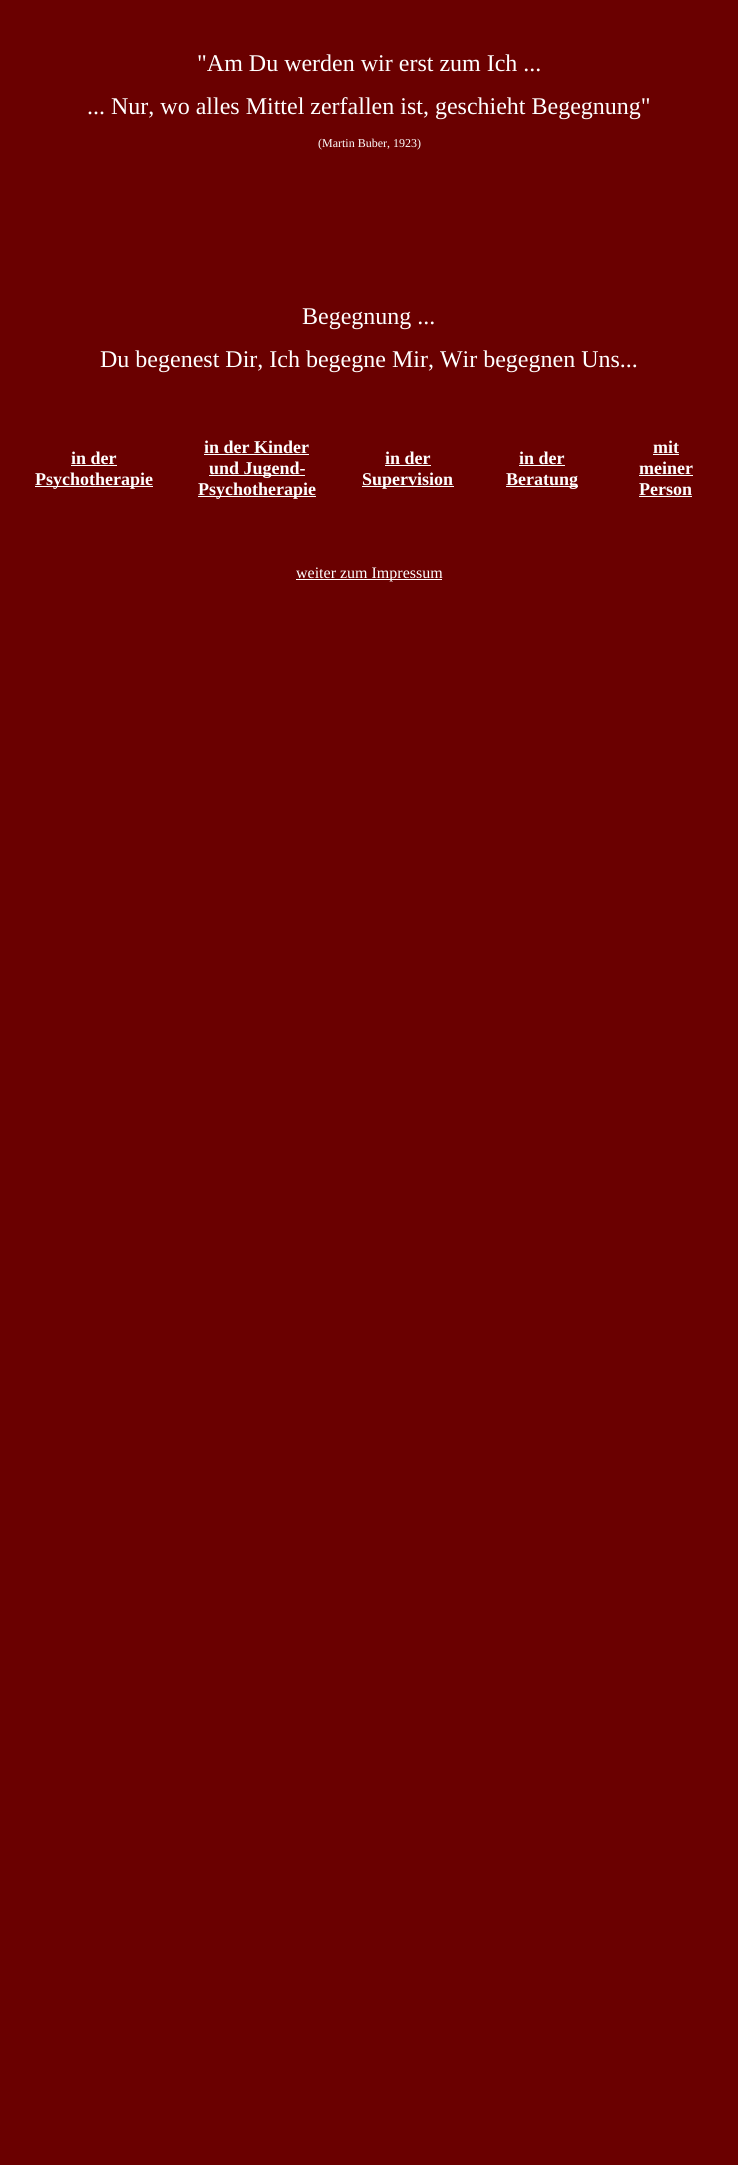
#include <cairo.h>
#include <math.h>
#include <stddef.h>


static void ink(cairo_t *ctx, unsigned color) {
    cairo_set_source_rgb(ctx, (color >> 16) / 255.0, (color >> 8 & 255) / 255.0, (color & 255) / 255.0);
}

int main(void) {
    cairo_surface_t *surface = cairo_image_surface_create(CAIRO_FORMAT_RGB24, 738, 2165);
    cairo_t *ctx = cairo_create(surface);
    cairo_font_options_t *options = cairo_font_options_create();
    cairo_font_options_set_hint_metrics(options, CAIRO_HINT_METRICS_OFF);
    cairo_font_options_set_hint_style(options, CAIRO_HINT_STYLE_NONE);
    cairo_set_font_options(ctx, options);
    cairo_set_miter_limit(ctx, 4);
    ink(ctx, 0x6A0000);
    cairo_paint(ctx);
    cairo_select_font_face(ctx, "Liberation Serif", CAIRO_FONT_SLANT_NORMAL, CAIRO_FONT_WEIGHT_NORMAL);
    cairo_set_font_size(ctx, 24);
    ink(ctx, 0xFFFFFF);
    cairo_move_to(ctx, 197, 71);
    cairo_show_text(ctx, "\"Am Du werden wir erst zum Ich ...");
    cairo_move_to(ctx, 87, 114);
    cairo_show_text(ctx, "... Nur, wo alles Mittel zerfallen ist, geschieht Begegnung\"");
    cairo_set_font_size(ctx, 12);
    cairo_move_to(ctx, 318, 147);
    cairo_show_text(ctx, "(Martin Buber, 1923)");
    cairo_set_font_size(ctx, 24);
    cairo_move_to(ctx, 302, 324);
    cairo_show_text(ctx, "Begegnung ...");
    cairo_move_to(ctx, 100, 367);
    cairo_show_text(ctx, "Du begenest Dir, Ich begegne Mir, Wir begegnen Uns...");
    cairo_select_font_face(ctx, "Liberation Serif", CAIRO_FONT_SLANT_NORMAL, CAIRO_FONT_WEIGHT_BOLD);
    cairo_set_font_size(ctx, 18);
    cairo_move_to(ctx, 71, 464);
    cairo_show_text(ctx, "in der");
    cairo_rectangle(ctx, 71, 465, 46, 1);
    cairo_fill(ctx);
    cairo_rectangle(ctx, 35, 486, 118, 1);
    cairo_fill(ctx);
    cairo_move_to(ctx, 35, 485);
    cairo_show_text(ctx, "Psychotherapie");
    cairo_move_to(ctx, 204, 453);
    cairo_show_text(ctx, "in der Kinder");
    cairo_rectangle(ctx, 204, 454, 105, 1);
    cairo_fill(ctx);
    cairo_rectangle(ctx, 209, 475, 96, 1);
    cairo_fill(ctx);
    cairo_move_to(ctx, 209, 474);
    cairo_show_text(ctx, "und Jugend-");
    cairo_rectangle(ctx, 198, 496, 118, 1);
    cairo_fill(ctx);
    cairo_move_to(ctx, 198, 495);
    cairo_show_text(ctx, "Psychotherapie");
    cairo_move_to(ctx, 385, 464);
    cairo_show_text(ctx, "in der");
    cairo_rectangle(ctx, 385, 465, 46, 1);
    cairo_fill(ctx);
    cairo_rectangle(ctx, 362, 486, 92, 1);
    cairo_fill(ctx);
    cairo_move_to(ctx, 362, 485);
    cairo_show_text(ctx, "Supervision");
    cairo_move_to(ctx, 519, 464);
    cairo_show_text(ctx, "in der");
    cairo_rectangle(ctx, 519, 465, 46, 1);
    cairo_fill(ctx);
    cairo_rectangle(ctx, 506, 486, 72, 1);
    cairo_fill(ctx);
    cairo_move_to(ctx, 506, 485);
    cairo_show_text(ctx, "Beratung");
    cairo_move_to(ctx, 653, 453);
    cairo_show_text(ctx, "mit");
    cairo_rectangle(ctx, 653, 454, 26, 1);
    cairo_fill(ctx);
    cairo_move_to(ctx, 639, 474);
    cairo_show_text(ctx, "meiner");
    cairo_rectangle(ctx, 639, 475, 54, 1);
    cairo_fill(ctx);
    cairo_move_to(ctx, 639, 495);
    cairo_show_text(ctx, "Person");
    cairo_rectangle(ctx, 639, 496, 53, 1);
    cairo_fill(ctx);
    cairo_rectangle(ctx, 296, 579, 146, 1);
    cairo_fill(ctx);
    cairo_select_font_face(ctx, "Liberation Serif", CAIRO_FONT_SLANT_NORMAL, CAIRO_FONT_WEIGHT_NORMAL);
    cairo_set_font_size(ctx, 16);
    cairo_move_to(ctx, 296, 578);
    cairo_show_text(ctx, "weiter zum Impressum");
    cairo_surface_write_to_png(surface, "image.png");
    cairo_font_options_destroy(options);
    cairo_destroy(ctx);
    cairo_surface_destroy(surface);
    return 0;
}
